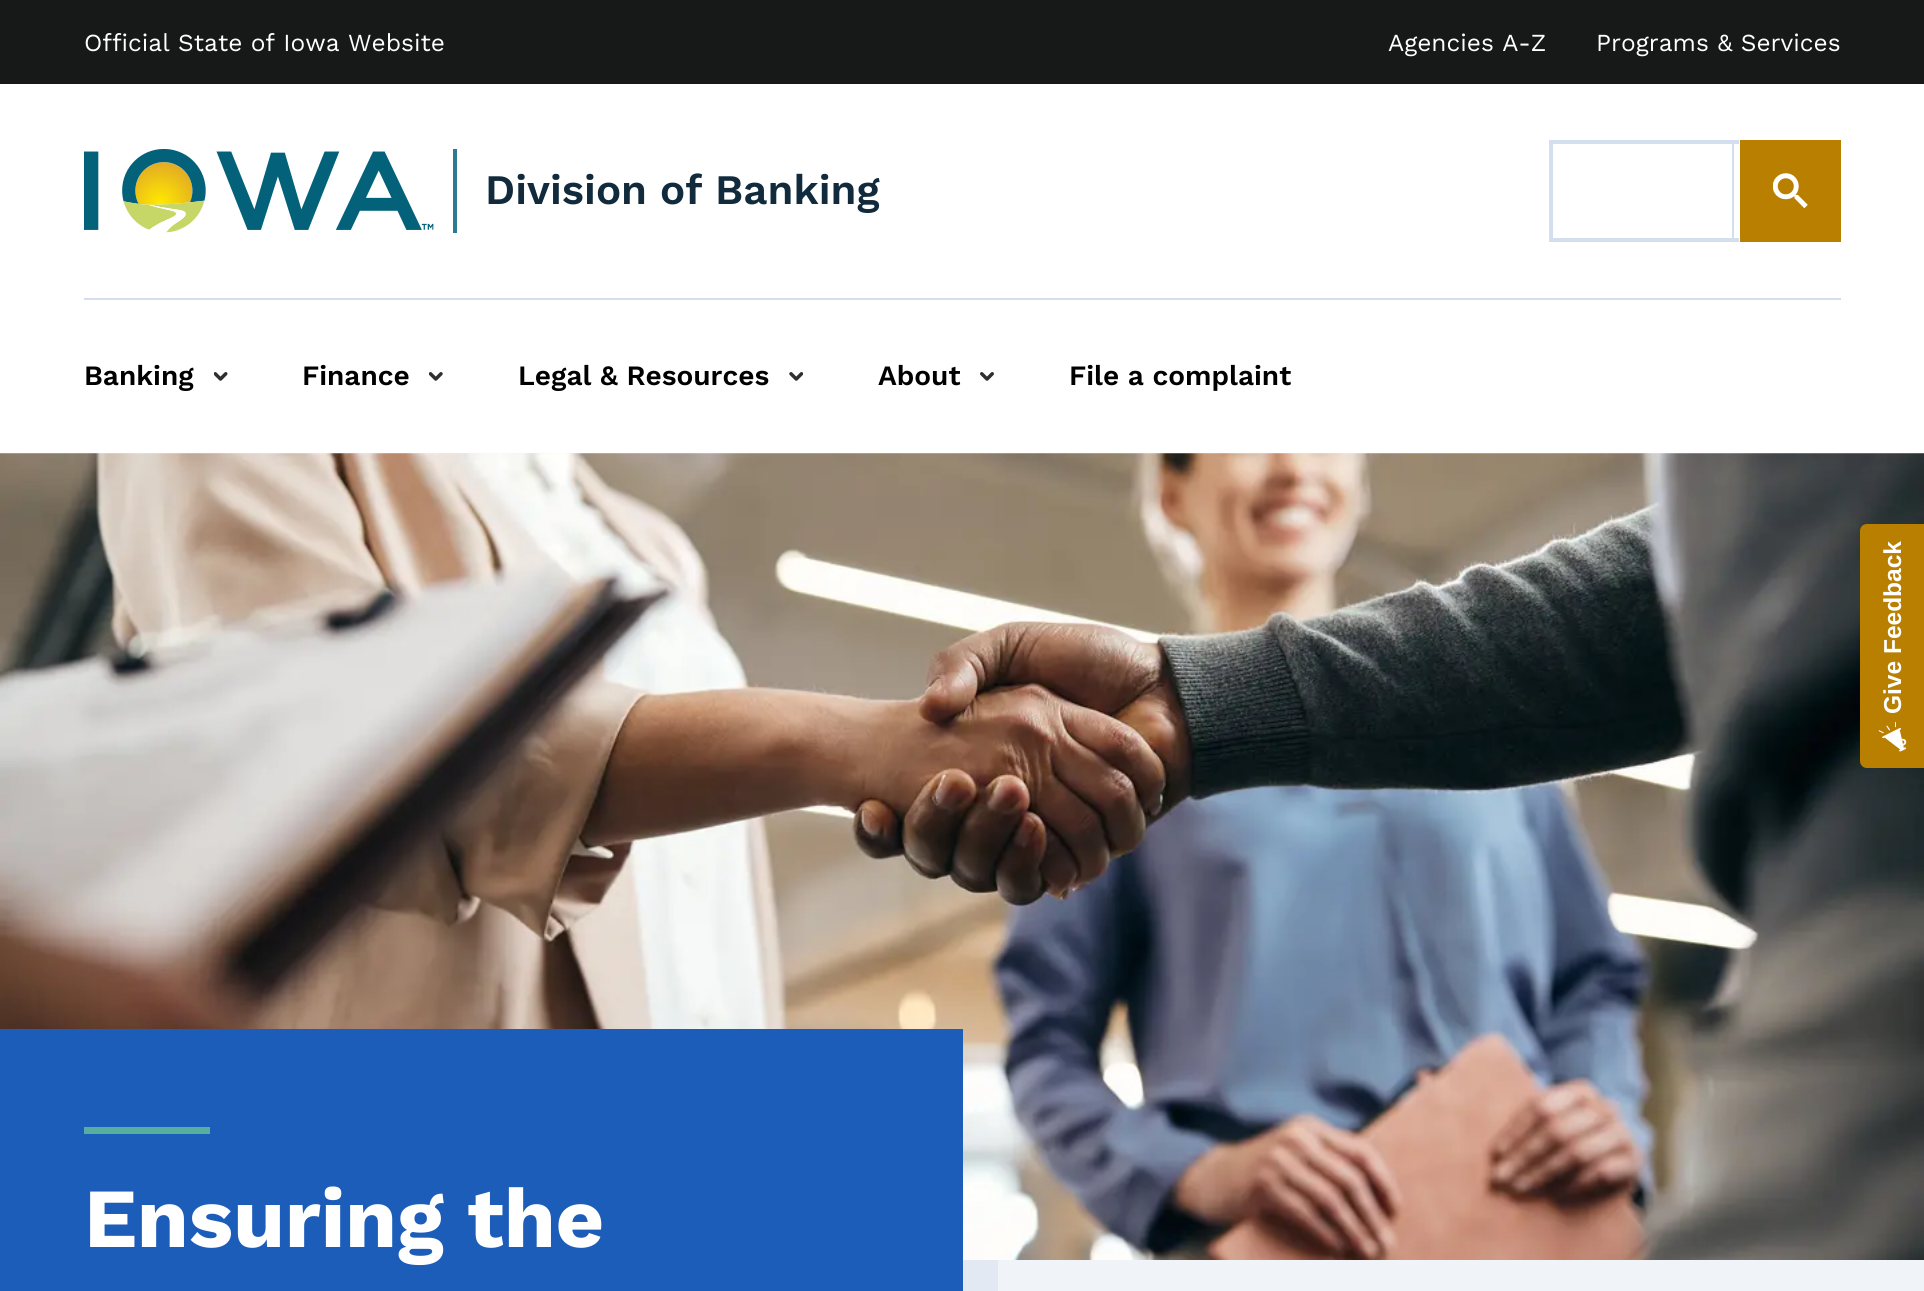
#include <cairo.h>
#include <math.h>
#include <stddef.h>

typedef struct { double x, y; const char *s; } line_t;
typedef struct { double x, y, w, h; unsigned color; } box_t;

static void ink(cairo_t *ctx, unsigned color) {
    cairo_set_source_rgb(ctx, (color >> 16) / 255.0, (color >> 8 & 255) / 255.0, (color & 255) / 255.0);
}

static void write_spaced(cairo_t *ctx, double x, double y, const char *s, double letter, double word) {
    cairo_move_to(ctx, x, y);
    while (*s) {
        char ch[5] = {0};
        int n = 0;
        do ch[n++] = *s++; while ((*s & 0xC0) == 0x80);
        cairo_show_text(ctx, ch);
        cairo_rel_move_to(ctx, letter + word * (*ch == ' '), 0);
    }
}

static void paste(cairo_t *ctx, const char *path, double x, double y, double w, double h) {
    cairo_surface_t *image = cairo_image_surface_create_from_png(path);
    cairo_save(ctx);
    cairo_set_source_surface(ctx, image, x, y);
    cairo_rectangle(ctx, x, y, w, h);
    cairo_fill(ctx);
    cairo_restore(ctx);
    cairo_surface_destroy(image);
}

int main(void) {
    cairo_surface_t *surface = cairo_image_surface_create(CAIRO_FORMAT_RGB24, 1924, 1291);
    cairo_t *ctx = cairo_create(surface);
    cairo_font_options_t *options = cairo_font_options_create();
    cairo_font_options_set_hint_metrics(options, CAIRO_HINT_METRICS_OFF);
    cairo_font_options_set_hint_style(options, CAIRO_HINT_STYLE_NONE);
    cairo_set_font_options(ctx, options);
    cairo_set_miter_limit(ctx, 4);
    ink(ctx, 0xFFFFFF);
    cairo_paint(ctx);
    ink(ctx, 0x171818);
    cairo_rectangle(ctx, 0, 0, 1924, 84);
    cairo_fill(ctx);
    cairo_select_font_face(ctx, "Work Sans", CAIRO_FONT_SLANT_NORMAL, CAIRO_FONT_WEIGHT_NORMAL);
    cairo_set_font_size(ctx, 24.5);
    ink(ctx, 0xFFFFFF);
    {
        static const line_t items[] = {
            {84, 51, "Official State of Iowa Website"},
            {1388, 51, "Agencies A-Z"},
            {1596, 51, "Programs & Services"},
        };
        for (size_t i = 0; i < sizeof items / sizeof *items; i++) {
            cairo_move_to(ctx, items[i].x, items[i].y);
            cairo_show_text(ctx, items[i].s);
        }
    }
    ink(ctx, 0xD3DFEE);
    cairo_rectangle(ctx, 84, 298, 1757, 2);
    cairo_fill(ctx);
    paste(ctx, "media/1.png", 84, 149, 350, 84);
    ink(ctx, 0x2D7B90);
    cairo_rectangle(ctx, 453, 149, 4, 84);
    cairo_fill(ctx);
    cairo_select_font_face(ctx, "Work Sans SemiBold", CAIRO_FONT_SLANT_NORMAL, CAIRO_FONT_WEIGHT_NORMAL);
    cairo_set_font_size(ctx, 42);
    ink(ctx, 0x112B3D);
    cairo_move_to(ctx, 485, 204);
    cairo_show_text(ctx, "Division of Banking");
    {
        static const box_t items[] = {
            {1549, 142, 185, 2, 0xD3DFEE},
            {1549, 238, 185, 2, 0xD3DFEE},
            {1551, 140, 2, 102, 0xD3DFEE},
        };
        for (size_t i = 0; i < sizeof items / sizeof *items; i++) {
            ink(ctx, items[i].color);
            cairo_rectangle(ctx, items[i].x, items[i].y, items[i].w, items[i].h);
            cairo_fill(ctx);
        }
    }
    cairo_rectangle(ctx, 1550, 141, 183, 100);
    cairo_stroke(ctx);
    {
        static const box_t items[] = {
            {1734, 140, 5, 4, 0xD3DFEE},
            {1734, 238, 5, 4, 0xD3DFEE},
            {1740, 140, 101, 102, 0xB87F00},
        };
        for (size_t i = 0; i < sizeof items / sizeof *items; i++) {
            ink(ctx, items[i].color);
            cairo_rectangle(ctx, items[i].x, items[i].y, items[i].w, items[i].h);
            cairo_fill(ctx);
        }
    }
    paste(ctx, "media/2.png", 1773, 173, 35, 35);
    cairo_set_font_size(ctx, 28);
    ink(ctx, 0x000000);
    cairo_move_to(ctx, 84, 385);
    cairo_show_text(ctx, "Banking");
    paste(ctx, "media/3.png", 214, 372, 14, 9);
    cairo_move_to(ctx, 302, 385);
    cairo_show_text(ctx, "Finance");
    paste(ctx, "media/4.png", 429, 372, 14, 9);
    cairo_move_to(ctx, 518, 385);
    cairo_show_text(ctx, "Legal & Resources");
    paste(ctx, "media/5.png", 789, 372, 14, 9);
    cairo_move_to(ctx, 878, 385);
    cairo_show_text(ctx, "About");
    paste(ctx, "media/6.png", 980, 372, 14, 9);
    cairo_move_to(ctx, 1069, 385);
    cairo_show_text(ctx, "File a complaint");
    ink(ctx, 0xF0F4F9);
    cairo_rectangle(ctx, 0, 453, 1924, 838);
    cairo_fill(ctx);
    paste(ctx, "media/7.png", 0, 453, 1924, 807);
    ink(ctx, 0x1C5DBA);
    cairo_rectangle(ctx, 0, 1029, 963, 262);
    cairo_fill(ctx);
    ink(ctx, 0x56AE9E);
    cairo_rectangle(ctx, 84, 1127, 126, 7);
    cairo_fill(ctx);
    cairo_select_font_face(ctx, "Work Sans", CAIRO_FONT_SLANT_NORMAL, CAIRO_FONT_WEIGHT_BOLD);
    cairo_set_font_size(ctx, 84);
    ink(ctx, 0xFFFFFF);
    write_spaced(ctx, 84, 1247, "Ensuring the", -0.25, 0);
    ink(ctx, 0xE2E9F3);
    cairo_rectangle(ctx, 963, 1260, 35, 31);
    cairo_fill(ctx);
    ink(ctx, 0xB87F00);
    cairo_new_path(ctx);
    cairo_move_to(ctx, 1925, 768);
    cairo_line_to(ctx, 1867, 768);
    cairo_curve_to(ctx, 1863, 768, 1860, 765, 1860, 761);
    cairo_line_to(ctx, 1860, 531);
    cairo_curve_to(ctx, 1860, 527, 1863, 524, 1867, 524);
    cairo_line_to(ctx, 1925, 524);
    cairo_close_path(ctx);
    cairo_fill(ctx);
    cairo_select_font_face(ctx, "Liberation Sans", CAIRO_FONT_SLANT_NORMAL, CAIRO_FONT_WEIGHT_BOLD);
    cairo_set_font_size(ctx, 24.5);
    ink(ctx, 0xFFFFFF);
    cairo_save(ctx);
    cairo_translate(ctx, 1901, 714);
    cairo_rotate(ctx, -90 * M_PI / 180);
    cairo_move_to(ctx, 0, 0);
    cairo_show_text(ctx, "Give Feedback");
    cairo_restore(ctx);
    paste(ctx, "media/8.png", 1878, 722, 29, 30);
    cairo_surface_write_to_png(surface, "image.png");
    cairo_font_options_destroy(options);
    cairo_destroy(ctx);
    cairo_surface_destroy(surface);
    return 0;
}
